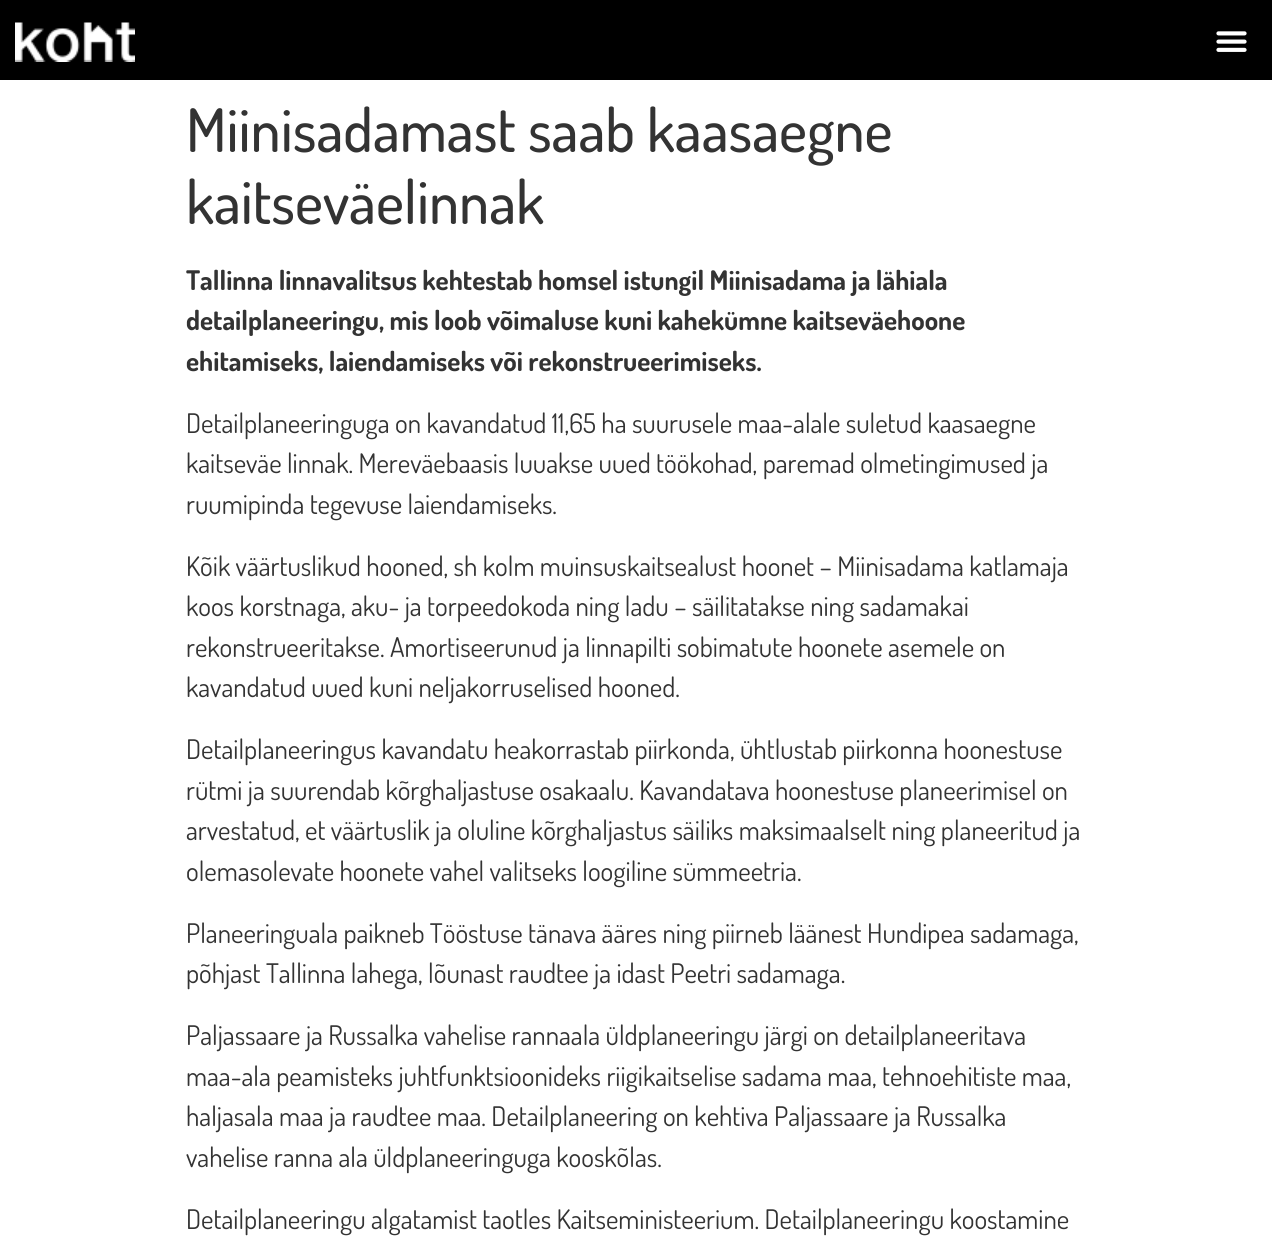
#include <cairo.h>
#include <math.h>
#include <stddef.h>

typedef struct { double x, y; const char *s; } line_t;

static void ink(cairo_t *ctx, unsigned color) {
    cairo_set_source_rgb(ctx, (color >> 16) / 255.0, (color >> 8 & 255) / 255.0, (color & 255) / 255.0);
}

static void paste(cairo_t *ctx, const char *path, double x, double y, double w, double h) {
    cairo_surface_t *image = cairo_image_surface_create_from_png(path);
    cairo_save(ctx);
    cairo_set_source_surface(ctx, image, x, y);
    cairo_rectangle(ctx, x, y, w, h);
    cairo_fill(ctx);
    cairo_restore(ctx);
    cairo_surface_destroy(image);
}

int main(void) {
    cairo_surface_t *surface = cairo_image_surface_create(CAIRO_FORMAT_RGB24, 1272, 1258);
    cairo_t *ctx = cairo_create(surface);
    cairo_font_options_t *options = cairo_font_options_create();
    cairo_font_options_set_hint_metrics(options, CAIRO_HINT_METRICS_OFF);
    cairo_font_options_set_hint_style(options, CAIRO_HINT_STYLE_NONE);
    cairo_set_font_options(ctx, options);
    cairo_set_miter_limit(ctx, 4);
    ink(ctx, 0xFFFFFF);
    cairo_paint(ctx);
    ink(ctx, 0x000000);
    cairo_rectangle(ctx, 0, 0, 1272, 80);
    cairo_fill(ctx);
    paste(ctx, "media/1.png", 15, 22, 120, 40);
    paste(ctx, "media/2.png", 1216, 31, 31, 21);
    cairo_select_font_face(ctx, "Dosis Medium", CAIRO_FONT_SLANT_NORMAL, CAIRO_FONT_WEIGHT_NORMAL);
    cairo_set_font_size(ctx, 60);
    ink(ctx, 0x333333);
    cairo_move_to(ctx, 186, 152);
    cairo_show_text(ctx, "Miinisadamast saab kaasaegne");
    cairo_move_to(ctx, 186, 224);
    cairo_show_text(ctx, "kaitseväelinnak");
    cairo_select_font_face(ctx, "Dosis", CAIRO_FONT_SLANT_NORMAL, CAIRO_FONT_WEIGHT_BOLD);
    cairo_set_font_size(ctx, 27);
    {
        static const line_t items[] = {
            {186, 290, "Tallinna linnavalitsus kehtestab homsel istungil Miinisadama ja lähiala"},
            {186, 330, "detailplaneeringu, mis loob võimaluse kuni kahekümne kaitseväehoone"},
            {186, 371, "ehitamiseks, laiendamiseks või rekonstrueerimiseks."},
        };
        for (size_t i = 0; i < sizeof items / sizeof *items; i++) {
            cairo_move_to(ctx, items[i].x, items[i].y);
            cairo_show_text(ctx, items[i].s);
        }
    }
    cairo_select_font_face(ctx, "Dosis", CAIRO_FONT_SLANT_NORMAL, CAIRO_FONT_WEIGHT_NORMAL);
    {
        static const line_t items[] = {
            {186, 433, "Detailplaneeringuga on kavandatud 11,65 ha suurusele maa-alale suletud kaasaegne"},
            {186, 473, "kaitseväe linnak. Mereväebaasis luuakse uued töökohad, paremad olmetingimused ja"},
            {186, 514, "ruumipinda tegevuse laiendamiseks."},
            {186, 576, "Kõik väärtuslikud hooned, sh kolm muinsuskaitsealust hoonet – Miinisadama katlamaja"},
            {186, 616, "koos korstnaga, aku- ja torpeedokoda ning ladu – säilitatakse ning sadamakai"},
            {186, 657, "rekonstrueeritakse. Amortiseerunud ja linnapilti sobimatute hoonete asemele on"},
            {186, 697, "kavandatud uued kuni neljakorruselised hooned."},
            {186, 759, "Detailplaneeringus kavandatu heakorrastab piirkonda, ühtlustab piirkonna hoonestuse"},
            {186, 800, "rütmi ja suurendab kõrghaljastuse osakaalu. Kavandatava hoonestuse planeerimisel on"},
            {186, 840, "arvestatud, et väärtuslik ja oluline kõrghaljastus säiliks maksimaalselt ning planeeritud ja"},
            {186, 881, "olemasolevate hoonete vahel valitseks loogiline sümmeetria."},
            {186, 943, "Planeeringuala paikneb Tööstuse tänava ääres ning piirneb läänest Hundipea sadamaga,"},
            {186, 983, "põhjast Tallinna lahega, lõunast raudtee ja idast Peetri sadamaga."},
            {186, 1045, "Paljassaare ja Russalka vahelise rannaala üldplaneeringu järgi on detailplaneeritava"},
            {186, 1086, "maa-ala peamisteks juhtfunktsioonideks riigikaitselise sadama maa, tehnoehitiste maa,"},
            {186, 1126, "haljasala maa ja raudtee maa. Detailplaneering on kehtiva Paljassaare ja Russalka"},
            {186, 1167, "vahelise ranna ala üldplaneeringuga kooskõlas."},
            {186, 1229, "Detailplaneeringu algatamist taotles Kaitseministeerium. Detailplaneeringu koostamine"},
        };
        for (size_t i = 0; i < sizeof items / sizeof *items; i++) {
            cairo_move_to(ctx, items[i].x, items[i].y);
            cairo_show_text(ctx, items[i].s);
        }
    }
    cairo_surface_write_to_png(surface, "image.png");
    cairo_font_options_destroy(options);
    cairo_destroy(ctx);
    cairo_surface_destroy(surface);
    return 0;
}
